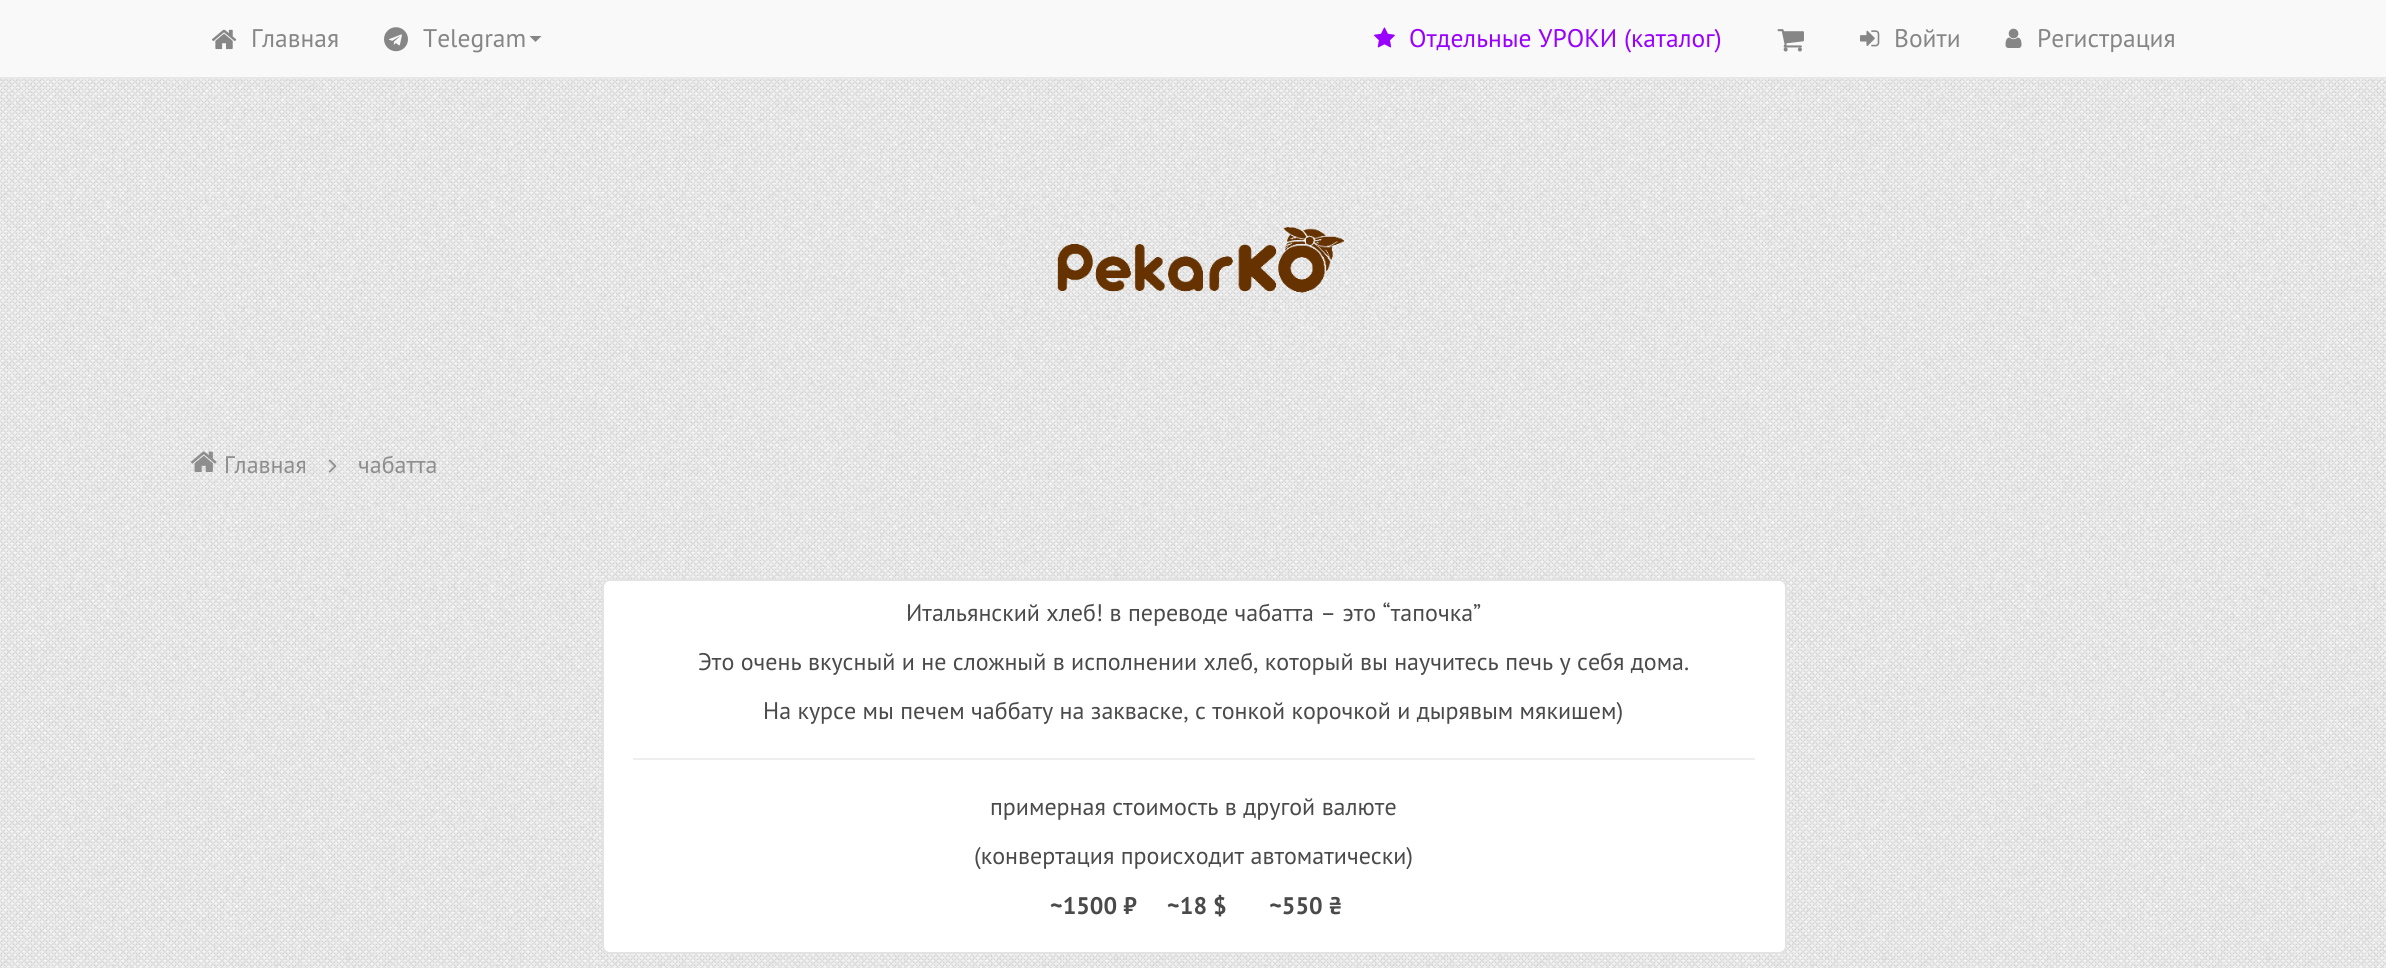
#include <cairo.h>
#include <math.h>
#include <stddef.h>

typedef struct { double x, y; const char *s; } line_t;

static void ink(cairo_t *ctx, unsigned color) {
    cairo_set_source_rgb(ctx, (color >> 16) / 255.0, (color >> 8 & 255) / 255.0, (color & 255) / 255.0);
}

static void round_path(cairo_t *ctx, double x, double y, double w, double h, double r) {
    cairo_new_sub_path(ctx);
    cairo_arc(ctx, x + w - r, y + h - r, r, 0, M_PI / 2);
    cairo_arc(ctx, x + r, y + h - r, r, M_PI / 2, M_PI);
    cairo_arc(ctx, x + r, y + r, r, M_PI, 1.5 * M_PI);
    cairo_arc(ctx, x + w - r, y + r, r, 1.5 * M_PI, 2 * M_PI);
    cairo_close_path(ctx);
}

static void paste(cairo_t *ctx, const char *path, double x, double y, double w, double h) {
    cairo_surface_t *image = cairo_image_surface_create_from_png(path);
    cairo_save(ctx);
    cairo_set_source_surface(ctx, image, x, y);
    cairo_rectangle(ctx, x, y, w, h);
    cairo_fill(ctx);
    cairo_restore(ctx);
    cairo_surface_destroy(image);
}

int main(void) {
    cairo_surface_t *surface = cairo_image_surface_create(CAIRO_FORMAT_RGB24, 2386, 968);
    cairo_t *ctx = cairo_create(surface);
    cairo_font_options_t *options = cairo_font_options_create();
    cairo_font_options_set_hint_metrics(options, CAIRO_HINT_METRICS_OFF);
    cairo_font_options_set_hint_style(options, CAIRO_HINT_STYLE_NONE);
    cairo_set_font_options(ctx, options);
    cairo_set_miter_limit(ctx, 4);
    ink(ctx, 0xFFFFFF);
    cairo_paint(ctx);
    paste(ctx, "media/1.png", 0, 79, 2386, 889);
    ink(ctx, 0xF9F9F9);
    cairo_rectangle(ctx, 0, 0, 2386, 77);
    cairo_fill(ctx);
    ink(ctx, 0xE7E7E7);
    cairo_rectangle(ctx, 0, 77, 2386, 2);
    cairo_fill(ctx);
    paste(ctx, "media/2.png", 212, 29, 25, 21);
    cairo_select_font_face(ctx, "PT Sans", CAIRO_FONT_SLANT_NORMAL, CAIRO_FONT_WEIGHT_NORMAL);
    cairo_set_font_size(ctx, 25.5);
    ink(ctx, 0x868686);
    cairo_move_to(ctx, 251, 47);
    cairo_show_text(ctx, "Главная");
    paste(ctx, "media/3.png", 384, 27, 24, 25);
    cairo_move_to(ctx, 423, 47);
    cairo_show_text(ctx, "Telegram");
    cairo_new_path(ctx);
    cairo_move_to(ctx, 529.5, 36);
    cairo_line_to(ctx, 541.5, 36);
    cairo_line_to(ctx, 535.5, 42);
    cairo_close_path(ctx);
    cairo_fill(ctx);
    paste(ctx, "media/4.png", 1374, 27, 21, 21);
    ink(ctx, 0x9900FF);
    cairo_move_to(ctx, 1409, 47);
    cairo_show_text(ctx, "Отдельные УРОКИ (каталог)");
    paste(ctx, "media/5.png", 1777, 29, 27, 23);
    paste(ctx, "media/6.png", 1860, 30, 20, 17);
    ink(ctx, 0x868686);
    cairo_move_to(ctx, 1894, 47);
    cairo_show_text(ctx, "Войти");
    paste(ctx, "media/7.png", 2005, 28, 17, 20);
    cairo_move_to(ctx, 2037, 47);
    cairo_show_text(ctx, "Регистрация");
    paste(ctx, "media/8.png", 1057, 227, 287, 66);
    ink(ctx, 0xE7E7E7);
    cairo_rectangle(ctx, 189, 510, 2010, 2);
    cairo_fill(ctx);
    paste(ctx, "media/9.png", 191, 451, 26, 21);
    cairo_set_font_size(ctx, 24);
    ink(ctx, 0x8E8E8E);
    cairo_move_to(ctx, 224, 473);
    cairo_show_text(ctx, "Главная");
    paste(ctx, "media/10.png", 328, 459, 9, 14);
    cairo_move_to(ctx, 358, 473);
    cairo_show_text(ctx, "чабатта");
    ink(ctx, 0xFFFFFF);
    round_path(ctx, 603, 580, 1183, 373, 7);
    cairo_fill_preserve(ctx);
    ink(ctx, 0xE3E3E3);
    cairo_stroke(ctx);
    ink(ctx, 0x4A4A4A);
    {
        static const line_t items[] = {
            {906, 621, "Итальянский хлеб! в переводе чабатта – это “тапочка”"},
            {698, 670, "Это очень вкусный и не сложный в исполнении хлеб, который вы научитесь печь у себя дома."},
            {763, 719, "На курсе мы печем чаббату на закваске, с тонкой корочкой и дырявым мякишем)"},
        };
        for (size_t i = 0; i < sizeof items / sizeof *items; i++) {
            cairo_move_to(ctx, items[i].x, items[i].y);
            cairo_show_text(ctx, items[i].s);
        }
    }
    ink(ctx, 0xEEEEEE);
    cairo_rectangle(ctx, 633, 758, 1122, 2);
    cairo_fill(ctx);
    ink(ctx, 0x4A4A4A);
    cairo_move_to(ctx, 990, 815);
    cairo_show_text(ctx, "примерная стоимость в другой валюте");
    cairo_move_to(ctx, 974, 864);
    cairo_show_text(ctx, "(конвертация происходит автоматически)");
    cairo_select_font_face(ctx, "PT Sans", CAIRO_FONT_SLANT_NORMAL, CAIRO_FONT_WEIGHT_BOLD);
    cairo_move_to(ctx, 1050, 914);
    cairo_show_text(ctx, "~1500 ₽     ~18 $       ~550 ₴");
    cairo_surface_write_to_png(surface, "image.png");
    cairo_font_options_destroy(options);
    cairo_destroy(ctx);
    cairo_surface_destroy(surface);
    return 0;
}
